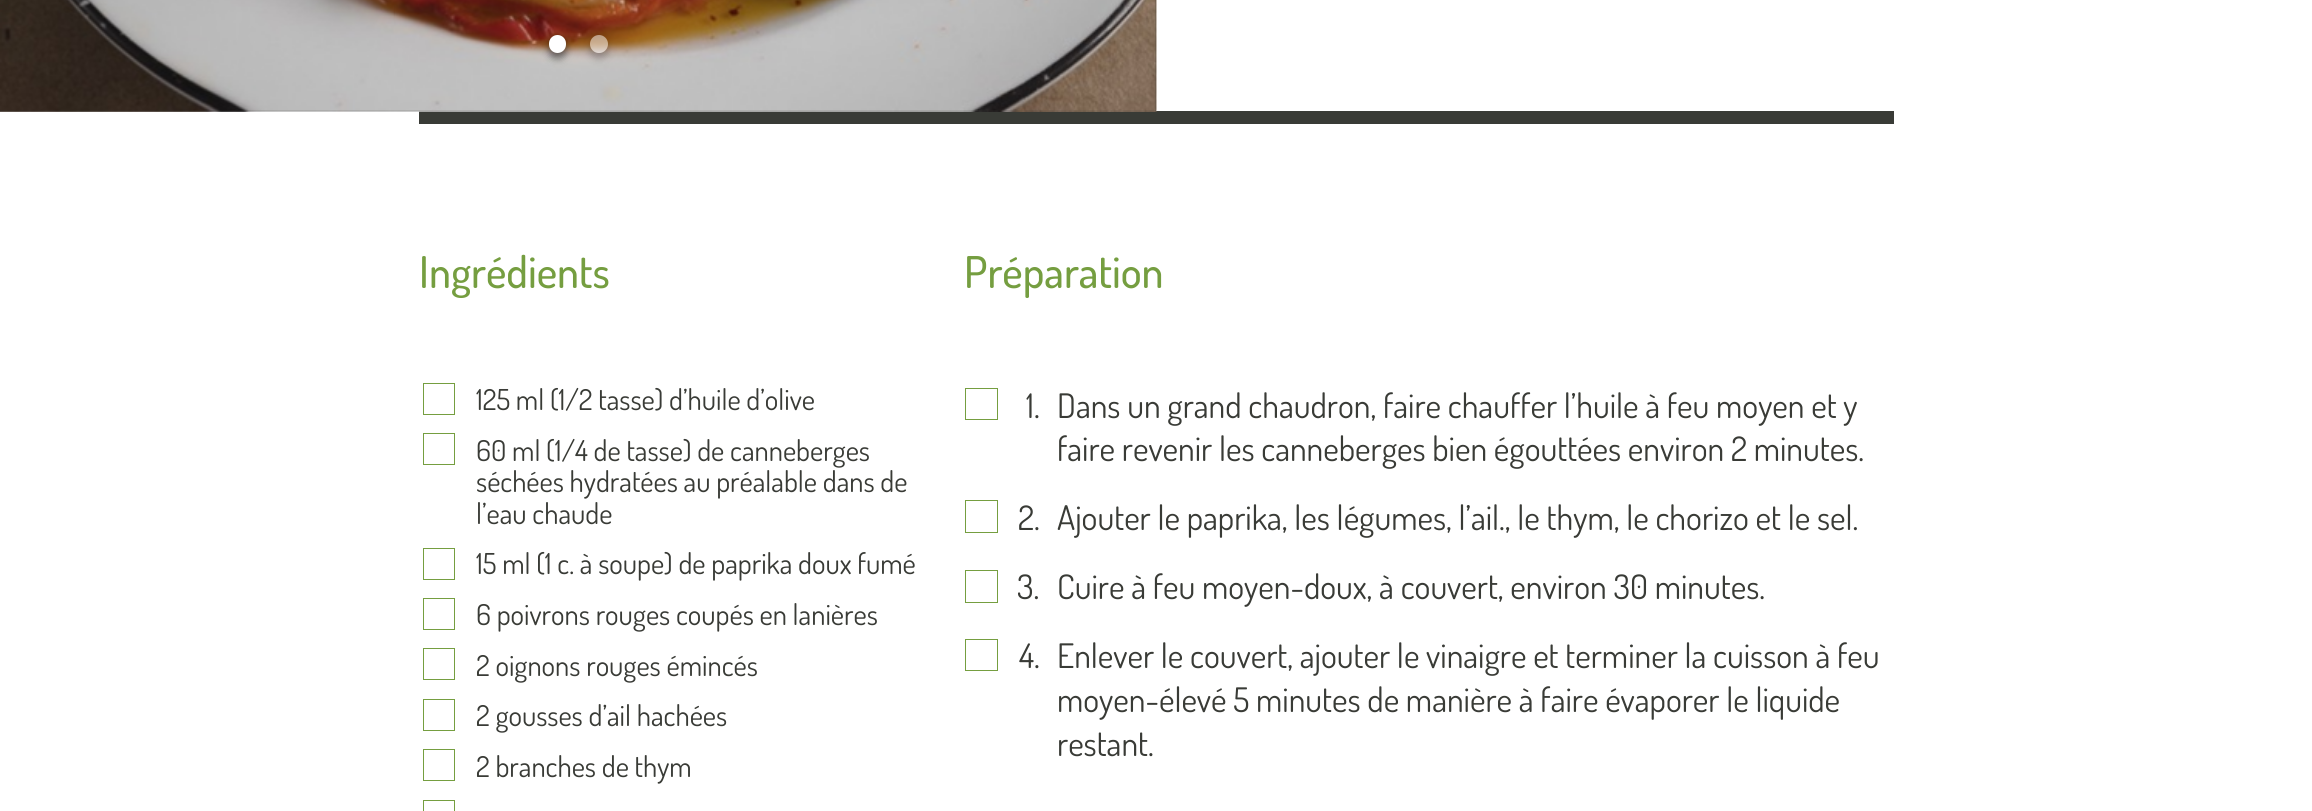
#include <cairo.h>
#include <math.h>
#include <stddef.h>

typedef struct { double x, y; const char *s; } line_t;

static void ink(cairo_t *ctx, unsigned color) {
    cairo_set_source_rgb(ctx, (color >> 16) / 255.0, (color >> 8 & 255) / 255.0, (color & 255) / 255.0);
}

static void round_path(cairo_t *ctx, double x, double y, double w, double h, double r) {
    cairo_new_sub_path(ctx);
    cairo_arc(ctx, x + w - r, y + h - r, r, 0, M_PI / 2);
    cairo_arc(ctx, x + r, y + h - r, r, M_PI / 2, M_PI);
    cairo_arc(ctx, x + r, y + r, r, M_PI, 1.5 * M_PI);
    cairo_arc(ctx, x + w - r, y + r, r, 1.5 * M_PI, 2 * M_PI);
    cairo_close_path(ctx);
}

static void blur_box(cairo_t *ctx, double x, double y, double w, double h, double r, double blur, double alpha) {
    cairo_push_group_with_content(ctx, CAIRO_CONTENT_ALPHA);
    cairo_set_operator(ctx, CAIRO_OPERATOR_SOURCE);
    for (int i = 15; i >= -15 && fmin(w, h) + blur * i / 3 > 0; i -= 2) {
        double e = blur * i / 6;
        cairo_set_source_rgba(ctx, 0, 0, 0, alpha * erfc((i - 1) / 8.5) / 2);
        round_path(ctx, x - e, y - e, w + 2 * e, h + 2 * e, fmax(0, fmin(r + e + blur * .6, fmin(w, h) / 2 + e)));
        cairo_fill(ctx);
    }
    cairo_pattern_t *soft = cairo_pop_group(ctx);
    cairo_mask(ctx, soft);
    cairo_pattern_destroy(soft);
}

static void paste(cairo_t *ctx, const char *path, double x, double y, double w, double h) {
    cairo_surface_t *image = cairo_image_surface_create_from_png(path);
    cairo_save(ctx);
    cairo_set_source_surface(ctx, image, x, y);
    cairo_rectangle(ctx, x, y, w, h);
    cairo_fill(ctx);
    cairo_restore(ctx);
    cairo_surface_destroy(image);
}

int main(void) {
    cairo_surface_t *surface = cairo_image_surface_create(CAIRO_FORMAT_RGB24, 2312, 811);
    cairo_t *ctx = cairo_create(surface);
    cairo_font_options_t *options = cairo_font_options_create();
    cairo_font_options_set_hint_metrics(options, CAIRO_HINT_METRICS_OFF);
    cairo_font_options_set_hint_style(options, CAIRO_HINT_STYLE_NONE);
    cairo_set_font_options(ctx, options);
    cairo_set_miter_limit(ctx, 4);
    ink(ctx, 0xFFFFFF);
    cairo_paint(ctx);
    ink(ctx, 0x393B36);
    cairo_rectangle(ctx, 0, 0, 1156, 111);
    cairo_fill(ctx);
    cairo_rectangle(ctx, 419, 111, 1475, 13);
    cairo_fill(ctx);
    paste(ctx, "media/1.png", 0, 0, 1157, 112);
    ink(ctx, 0x000000);
    blur_box(ctx, 549, 40, 17, 18, 8.5, 4, 0.5);
    ink(ctx, 0xFFFFFF);
    round_path(ctx, 549, 35, 17, 18, 8.5);
    cairo_fill(ctx);
    cairo_save(ctx);
    cairo_set_fill_rule(ctx, CAIRO_FILL_RULE_EVEN_ODD);
    cairo_new_path(ctx);
    cairo_move_to(ctx, 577, 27);
    cairo_line_to(ctx, 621, 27);
    cairo_line_to(ctx, 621, 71);
    cairo_line_to(ctx, 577, 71);
    cairo_close_path(ctx);
    cairo_move_to(ctx, 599, 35);
    cairo_curve_to(ctx, 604, 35, 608, 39, 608, 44);
    cairo_curve_to(ctx, 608, 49, 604, 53, 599, 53);
    cairo_curve_to(ctx, 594, 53, 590, 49, 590, 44);
    cairo_curve_to(ctx, 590, 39, 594, 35, 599, 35);
    cairo_close_path(ctx);
    cairo_clip(ctx);
    ink(ctx, 0x000000);
    blur_box(ctx, 590, 40, 18, 18, 9, 4, 0.25);
    cairo_restore(ctx);
    cairo_set_source_rgba(ctx, 1, 1, 1, 0.5);
    cairo_arc(ctx, 599, 44, 9, 0, 2 * M_PI);
    cairo_fill(ctx);
    cairo_select_font_face(ctx, "Dosis Medium", CAIRO_FONT_SLANT_NORMAL, CAIRO_FONT_WEIGHT_NORMAL);
    cairo_set_font_size(ctx, 43.75);
    ink(ctx, 0x759E40);
    cairo_move_to(ctx, 419, 288);
    cairo_show_text(ctx, "Ingrédients");
    cairo_rectangle(ctx, 423.5, 383.5, 31, 31);
    cairo_set_line_width(ctx, 1);
    cairo_stroke(ctx);
    cairo_select_font_face(ctx, "Dosis", CAIRO_FONT_SLANT_NORMAL, CAIRO_FONT_WEIGHT_NORMAL);
    cairo_set_font_size(ctx, 28.75);
    ink(ctx, 0x393B36);
    cairo_move_to(ctx, 476, 410);
    cairo_show_text(ctx, "125 ml (1/2 tasse) d’huile d’olive");
    cairo_rectangle(ctx, 423.5, 433.5, 31, 31);
    ink(ctx, 0x759E40);
    cairo_stroke(ctx);
    ink(ctx, 0x393B36);
    {
        static const line_t items[] = {
            {476, 461, "60 ml (1/4 de tasse) de canneberges"},
            {476, 492, "séchées hydratées au préalable dans de"},
            {476, 524, "l’eau chaude"},
        };
        for (size_t i = 0; i < sizeof items / sizeof *items; i++) {
            cairo_move_to(ctx, items[i].x, items[i].y);
            cairo_show_text(ctx, items[i].s);
        }
    }
    cairo_rectangle(ctx, 423.5, 548.5, 31, 31);
    ink(ctx, 0x759E40);
    cairo_stroke(ctx);
    ink(ctx, 0x393B36);
    cairo_move_to(ctx, 476, 574);
    cairo_show_text(ctx, "15 ml (1 c. à soupe) de paprika doux fumé");
    cairo_rectangle(ctx, 423.5, 598.5, 31, 31);
    ink(ctx, 0x759E40);
    cairo_stroke(ctx);
    ink(ctx, 0x393B36);
    cairo_move_to(ctx, 476, 625);
    cairo_show_text(ctx, "6 poivrons rouges coupés en lanières");
    cairo_rectangle(ctx, 423.5, 648.5, 31, 31);
    ink(ctx, 0x759E40);
    cairo_stroke(ctx);
    ink(ctx, 0x393B36);
    cairo_move_to(ctx, 476, 676);
    cairo_show_text(ctx, "2 oignons rouges émincés");
    cairo_rectangle(ctx, 423.5, 699.5, 31, 31);
    ink(ctx, 0x759E40);
    cairo_stroke(ctx);
    ink(ctx, 0x393B36);
    cairo_move_to(ctx, 476, 726);
    cairo_show_text(ctx, "2 gousses d’ail hachées");
    cairo_rectangle(ctx, 423.5, 749.5, 31, 31);
    ink(ctx, 0x759E40);
    cairo_stroke(ctx);
    ink(ctx, 0x393B36);
    cairo_move_to(ctx, 476, 777);
    cairo_show_text(ctx, "2 branches de thym");
    cairo_rectangle(ctx, 423.5, 800.5, 31, 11);
    ink(ctx, 0x759E40);
    cairo_stroke(ctx);
    cairo_select_font_face(ctx, "Dosis Medium", CAIRO_FONT_SLANT_NORMAL, CAIRO_FONT_WEIGHT_NORMAL);
    cairo_set_font_size(ctx, 43.75);
    cairo_move_to(ctx, 964, 288);
    cairo_show_text(ctx, "Préparation");
    cairo_select_font_face(ctx, "Dosis", CAIRO_FONT_SLANT_NORMAL, CAIRO_FONT_WEIGHT_NORMAL);
    cairo_set_font_size(ctx, 33.75);
    ink(ctx, 0x393B36);
    cairo_move_to(ctx, 1026, 418);
    cairo_show_text(ctx, "1.");
    cairo_rectangle(ctx, 965.5, 388.5, 32, 31);
    ink(ctx, 0x759E40);
    cairo_stroke(ctx);
    ink(ctx, 0x393B36);
    {
        static const line_t items[] = {
            {1057, 418, "Dans un grand chaudron, faire chauffer l’huile à feu moyen et y"},
            {1057, 461, "faire revenir les canneberges bien égouttées environ 2 minutes."},
            {1018, 530, "2."},
        };
        for (size_t i = 0; i < sizeof items / sizeof *items; i++) {
            cairo_move_to(ctx, items[i].x, items[i].y);
            cairo_show_text(ctx, items[i].s);
        }
    }
    cairo_rectangle(ctx, 965.5, 500.5, 32, 32);
    ink(ctx, 0x759E40);
    cairo_stroke(ctx);
    ink(ctx, 0x393B36);
    cairo_move_to(ctx, 1057, 530);
    cairo_show_text(ctx, "Ajouter le paprika, les légumes, l’ail., le thym, le chorizo et le sel.");
    cairo_move_to(ctx, 1017, 599);
    cairo_show_text(ctx, "3.");
    cairo_rectangle(ctx, 965.5, 570.5, 32, 32);
    ink(ctx, 0x759E40);
    cairo_stroke(ctx);
    ink(ctx, 0x393B36);
    cairo_move_to(ctx, 1057, 599);
    cairo_show_text(ctx, "Cuire à feu moyen-doux, à couvert, environ 30 minutes.");
    cairo_move_to(ctx, 1019, 668);
    cairo_show_text(ctx, "4.");
    cairo_rectangle(ctx, 965.5, 639.5, 32, 31);
    ink(ctx, 0x759E40);
    cairo_stroke(ctx);
    ink(ctx, 0x393B36);
    {
        static const line_t items[] = {
            {1057, 668, "Enlever le couvert, ajouter le vinaigre et terminer la cuisson à feu"},
            {1057, 712, "moyen-élevé 5 minutes de manière à faire évaporer le liquide"},
            {1057, 756, "restant."},
        };
        for (size_t i = 0; i < sizeof items / sizeof *items; i++) {
            cairo_move_to(ctx, items[i].x, items[i].y);
            cairo_show_text(ctx, items[i].s);
        }
    }
    cairo_surface_write_to_png(surface, "image.png");
    cairo_font_options_destroy(options);
    cairo_destroy(ctx);
    cairo_surface_destroy(surface);
    return 0;
}
